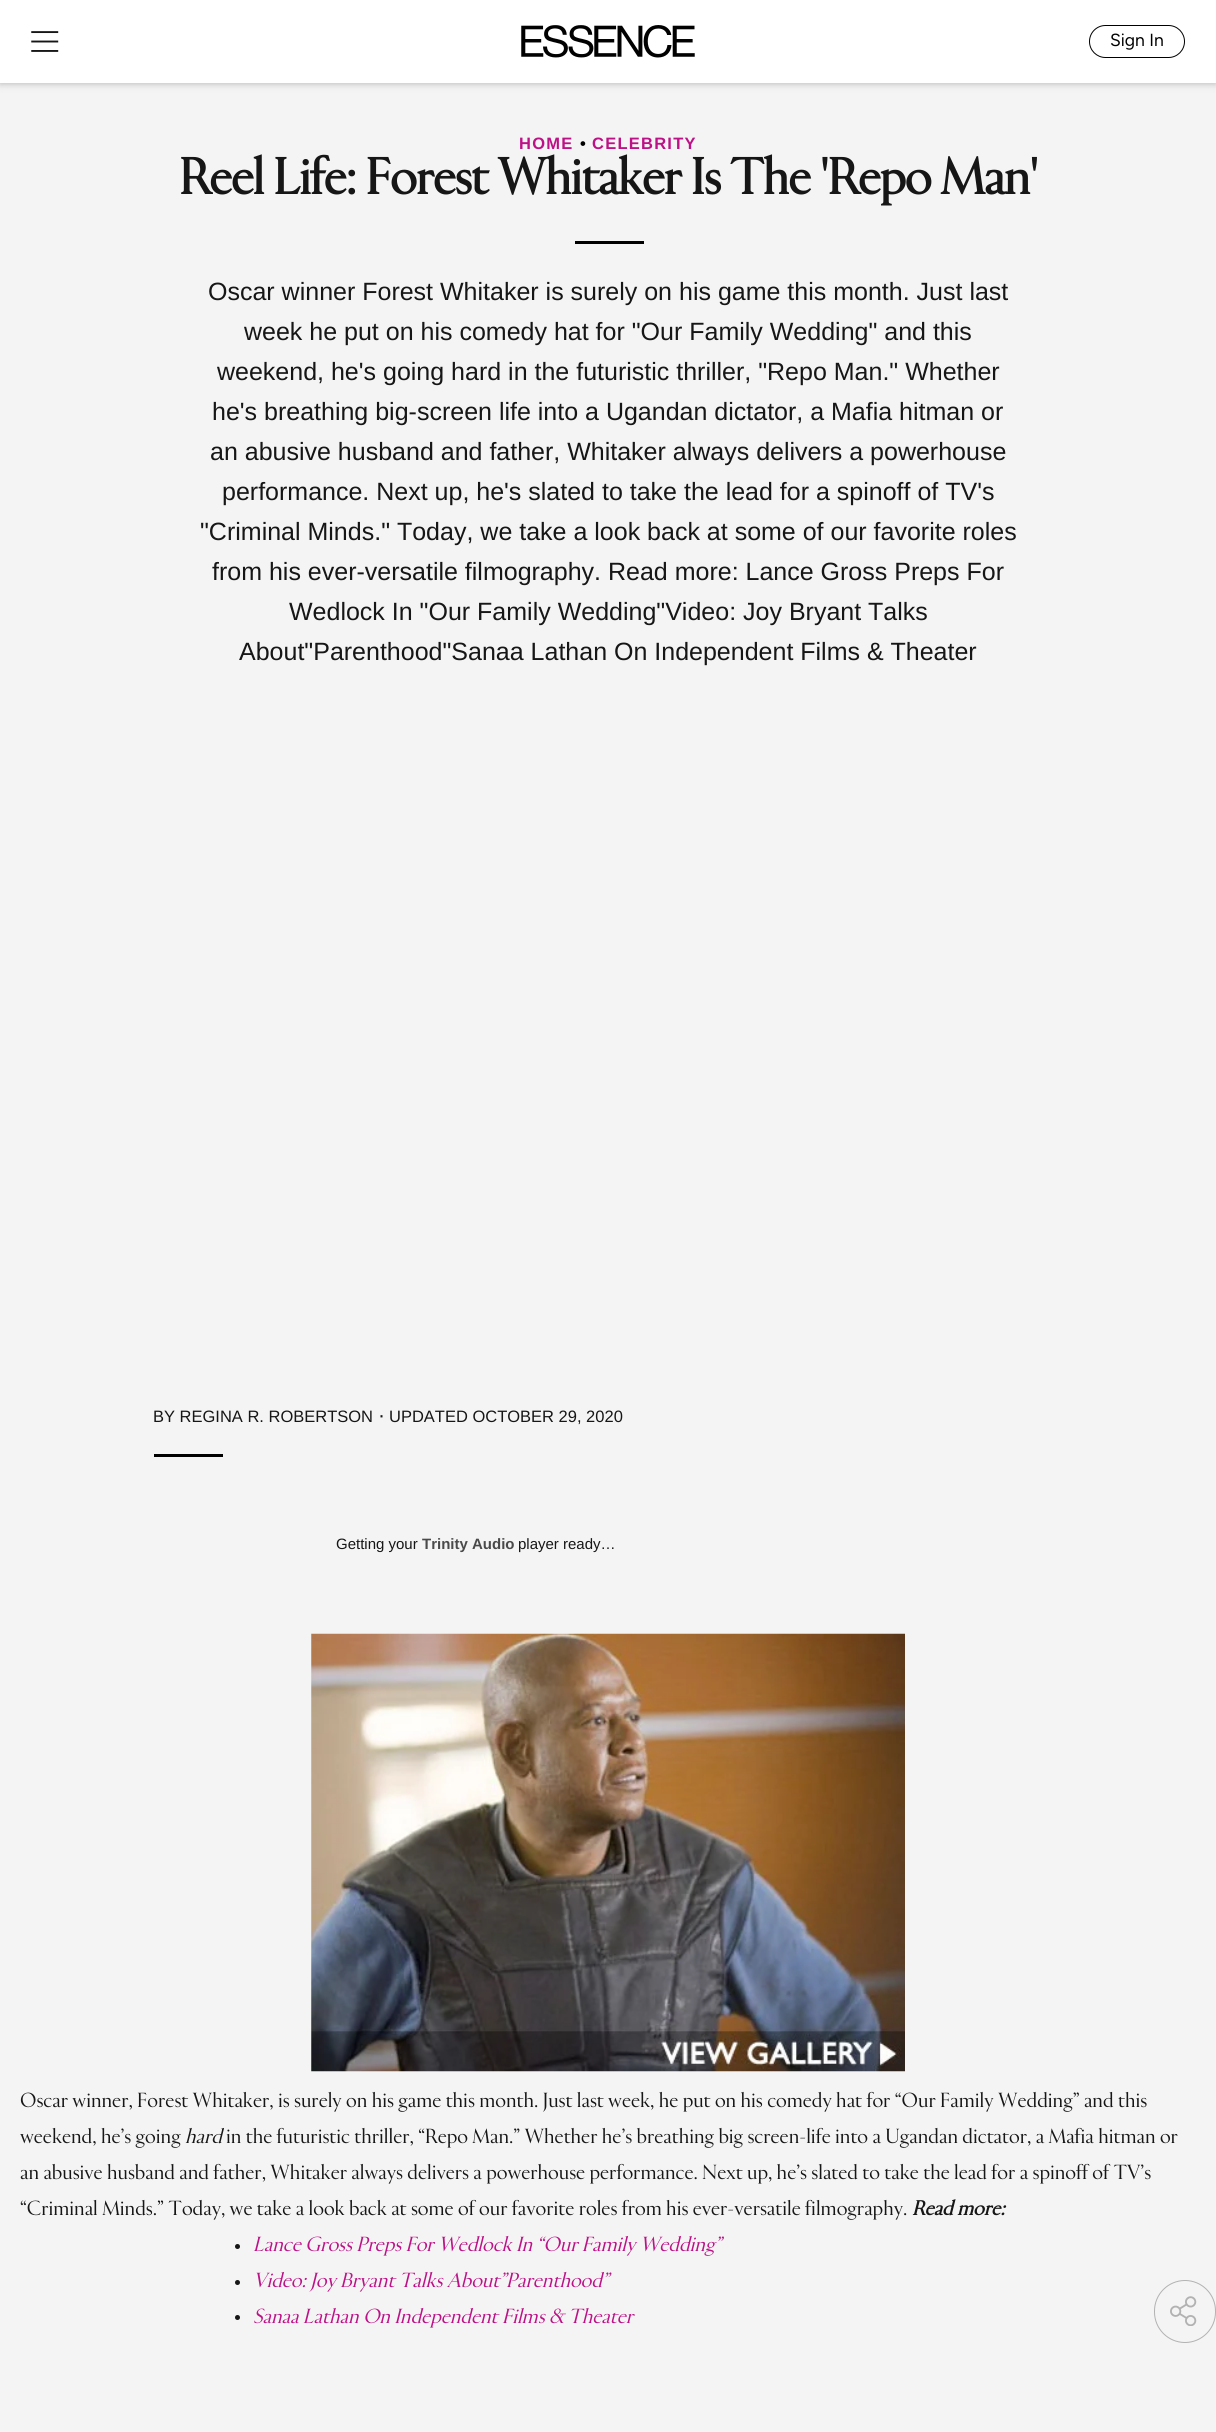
#include <cairo.h>
#include <math.h>
#include <stddef.h>

typedef struct { double x, y; const char *s; } line_t;

static void ink(cairo_t *ctx, unsigned color) {
    cairo_set_source_rgb(ctx, (color >> 16) / 255.0, (color >> 8 & 255) / 255.0, (color & 255) / 255.0);
}

static void write_spaced(cairo_t *ctx, double x, double y, const char *s, double letter, double word) {
    cairo_move_to(ctx, x, y);
    while (*s) {
        char ch[5] = {0};
        int n = 0;
        do ch[n++] = *s++; while ((*s & 0xC0) == 0x80);
        cairo_show_text(ctx, ch);
        cairo_rel_move_to(ctx, letter + word * (*ch == ' '), 0);
    }
}

static void round_path(cairo_t *ctx, double x, double y, double w, double h, double r) {
    cairo_new_sub_path(ctx);
    cairo_arc(ctx, x + w - r, y + h - r, r, 0, M_PI / 2);
    cairo_arc(ctx, x + r, y + h - r, r, M_PI / 2, M_PI);
    cairo_arc(ctx, x + r, y + r, r, M_PI, 1.5 * M_PI);
    cairo_arc(ctx, x + w - r, y + r, r, 1.5 * M_PI, 2 * M_PI);
    cairo_close_path(ctx);
}

static void blur_box(cairo_t *ctx, double x, double y, double w, double h, double r, double blur, double alpha) {
    cairo_push_group_with_content(ctx, CAIRO_CONTENT_ALPHA);
    cairo_set_operator(ctx, CAIRO_OPERATOR_SOURCE);
    for (int i = 15; i >= -15 && fmin(w, h) + blur * i / 3 > 0; i -= 2) {
        double e = blur * i / 6;
        cairo_set_source_rgba(ctx, 0, 0, 0, alpha * erfc((i - 1) / 8.5) / 2);
        round_path(ctx, x - e, y - e, w + 2 * e, h + 2 * e, fmax(0, fmin(r + e + blur * .6, fmin(w, h) / 2 + e)));
        cairo_fill(ctx);
    }
    cairo_pattern_t *soft = cairo_pop_group(ctx);
    cairo_mask(ctx, soft);
    cairo_pattern_destroy(soft);
}

static void paste(cairo_t *ctx, const char *path, double x, double y, double w, double h) {
    cairo_surface_t *image = cairo_image_surface_create_from_png(path);
    cairo_save(ctx);
    cairo_set_source_surface(ctx, image, x, y);
    cairo_rectangle(ctx, x, y, w, h);
    cairo_fill(ctx);
    cairo_restore(ctx);
    cairo_surface_destroy(image);
}

int main(void) {
    cairo_surface_t *surface = cairo_image_surface_create(CAIRO_FORMAT_RGB24, 1216, 2432);
    cairo_t *ctx = cairo_create(surface);
    cairo_font_options_t *options = cairo_font_options_create();
    cairo_font_options_set_hint_metrics(options, CAIRO_HINT_METRICS_OFF);
    cairo_font_options_set_hint_style(options, CAIRO_HINT_STYLE_NONE);
    cairo_set_font_options(ctx, options);
    cairo_set_miter_limit(ctx, 4);
    ink(ctx, 0xF4F4F4);
    cairo_paint(ctx);
    ink(ctx, 0x000000);
    blur_box(ctx, 0, 0, 1216, 83, 0, 3, 0.16);
    ink(ctx, 0xFFFFFF);
    cairo_rectangle(ctx, 0, 0, 1216, 83);
    cairo_fill(ctx);
    cairo_save(ctx);
    cairo_set_fill_rule(ctx, CAIRO_FILL_RULE_EVEN_ODD);
    cairo_new_path(ctx);
    cairo_move_to(ctx, 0, 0);
    cairo_line_to(ctx, 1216, 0);
    cairo_line_to(ctx, 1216, 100);
    cairo_line_to(ctx, 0, 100);
    cairo_close_path(ctx);
    cairo_move_to(ctx, 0, 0);
    cairo_line_to(ctx, 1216, 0);
    cairo_line_to(ctx, 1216, 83);
    cairo_line_to(ctx, 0, 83);
    cairo_close_path(ctx);
    cairo_clip(ctx);
    ink(ctx, 0x000000);
    blur_box(ctx, 0, 1, 1216, 83, 0, 5, 0.12);
    cairo_restore(ctx);
    paste(ctx, "media/1.png", 31, 31, 28, 21);
    paste(ctx, "media/2.png", 521, 25, 174, 33);
    round_path(ctx, 1089.5, 25.5, 95, 32, 16);
    ink(ctx, 0x000000);
    cairo_set_line_width(ctx, 1);
    cairo_stroke(ctx);
    cairo_select_font_face(ctx, "Figtree", CAIRO_FONT_SLANT_NORMAL, CAIRO_FONT_WEIGHT_NORMAL);
    cairo_set_font_size(ctx, 17.5);
    cairo_move_to(ctx, 1110, 46);
    cairo_show_text(ctx, "Sign In");
    cairo_select_font_face(ctx, "Liberation Sans", CAIRO_FONT_SLANT_NORMAL, CAIRO_FONT_WEIGHT_BOLD);
    cairo_set_font_size(ctx, 16.5);
    ink(ctx, 0xBD1187);
    write_spaced(ctx, 519, 149, "HOME", 1.25, 0);
    ink(ctx, 0x000000);
    write_spaced(ctx, 580, 149, "•", 1.25, 0);
    ink(ctx, 0xBD1187);
    write_spaced(ctx, 592, 149, "CELEBRITY", 1.25, 0);
    cairo_select_font_face(ctx, "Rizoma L", CAIRO_FONT_SLANT_NORMAL, CAIRO_FONT_WEIGHT_BOLD);
    cairo_set_font_size(ctx, 50);
    ink(ctx, 0x161616);
    write_spaced(ctx, 179, 194, "Reel Life: Forest Whitaker Is The 'Repo Man'", -1, 0);
    ink(ctx, 0x000000);
    cairo_rectangle(ctx, 575, 241, 69, 3);
    cairo_fill(ctx);
    cairo_select_font_face(ctx, "Liberation Sans", CAIRO_FONT_SLANT_NORMAL, CAIRO_FONT_WEIGHT_NORMAL);
    cairo_set_font_size(ctx, 25);
    ink(ctx, 0x161616);
    {
        static const line_t items[] = {
            {208, 300, "Oscar winner Forest Whitaker is surely on his game this month. Just last"},
            {244, 340, "week he put on his comedy hat for \"Our Family Wedding\" and this"},
            {217, 380, "weekend, he's going hard in the futuristic thriller, \"Repo Man.\" Whether"},
            {212, 420, "he's breathing big-screen life into a Ugandan dictator, a Mafia hitman or"},
            {210, 460, "an abusive husband and father, Whitaker always delivers a powerhouse"},
            {222, 500, "performance. Next up, he's slated to take the lead for a spinoff of TV's"},
            {200, 540, "\"Criminal Minds.\" Today, we take a look back at some of our favorite roles"},
            {212, 580, "from his ever-versatile filmography. Read more: Lance Gross Preps For"},
            {289, 620, "Wedlock In \"Our Family Wedding\"Video: Joy Bryant Talks"},
            {239, 660, "About\"Parenthood\"Sanaa Lathan On Independent Films & Theater"},
        };
        for (size_t i = 0; i < sizeof items / sizeof *items; i++) {
            cairo_move_to(ctx, items[i].x, items[i].y);
            cairo_show_text(ctx, items[i].s);
        }
    }
    cairo_set_font_size(ctx, 16.5);
    cairo_move_to(ctx, 153, 1422);
    cairo_show_text(ctx, "BY REGINA R. ROBERTSON");
    cairo_set_font_size(ctx, 21);
    cairo_move_to(ctx, 378, 1422);
    cairo_show_text(ctx, "·");
    cairo_set_font_size(ctx, 16.5);
    cairo_move_to(ctx, 389, 1422);
    cairo_show_text(ctx, "UPDATED OCTOBER 29, 2020");
    ink(ctx, 0x000000);
    cairo_rectangle(ctx, 154, 1454, 69, 3);
    cairo_fill(ctx);
    cairo_set_font_size(ctx, 15);
    ink(ctx, 0x161616);
    cairo_move_to(ctx, 336, 1549);
    cairo_show_text(ctx, "Getting your");
    cairo_select_font_face(ctx, "Liberation Sans", CAIRO_FONT_SLANT_NORMAL, CAIRO_FONT_WEIGHT_BOLD);
    ink(ctx, 0x4B4A4A);
    cairo_move_to(ctx, 422, 1549);
    cairo_show_text(ctx, "Trinity Audio");
    cairo_select_font_face(ctx, "Liberation Sans", CAIRO_FONT_SLANT_NORMAL, CAIRO_FONT_WEIGHT_NORMAL);
    ink(ctx, 0x161616);
    cairo_move_to(ctx, 518, 1549);
    cairo_show_text(ctx, "player ready…");
    paste(ctx, "media/3.png", 311, 1633, 594, 439);
    cairo_select_font_face(ctx, "Rizoma L", CAIRO_FONT_SLANT_NORMAL, CAIRO_FONT_WEIGHT_NORMAL);
    cairo_set_font_size(ctx, 20);
    cairo_move_to(ctx, 20, 2107);
    cairo_show_text(ctx, "Oscar winner, Forest Whitaker, is surely on his game this month. Just last week, he put on his comedy hat for “Our Family Wedding” and this");
    cairo_move_to(ctx, 20, 2143);
    cairo_show_text(ctx, "weekend, he’s going");
    cairo_select_font_face(ctx, "Rizoma L", CAIRO_FONT_SLANT_ITALIC, CAIRO_FONT_WEIGHT_NORMAL);
    cairo_move_to(ctx, 185, 2143);
    cairo_show_text(ctx, "hard");
    cairo_select_font_face(ctx, "Rizoma L", CAIRO_FONT_SLANT_NORMAL, CAIRO_FONT_WEIGHT_NORMAL);
    {
        static const line_t items[] = {
            {226, 2143, "in the futuristic thriller, “Repo Man.” Whether he’s breathing big screen-life into a Ugandan dictator, a Mafia hitman or"},
            {20, 2179, "an abusive husband and father, Whitaker always delivers a powerhouse performance. Next up, he’s slated to take the lead for a spinoff of TV’s"},
            {20, 2215, "“Criminal Minds.” Today, we take a look back at some of our favorite roles from his ever-versatile filmography."},
        };
        for (size_t i = 0; i < sizeof items / sizeof *items; i++) {
            cairo_move_to(ctx, items[i].x, items[i].y);
            cairo_show_text(ctx, items[i].s);
        }
    }
    cairo_select_font_face(ctx, "Rizoma L", CAIRO_FONT_SLANT_ITALIC, CAIRO_FONT_WEIGHT_BOLD);
    cairo_move_to(ctx, 912, 2215);
    cairo_show_text(ctx, "Read more:");
    cairo_new_path(ctx);
    cairo_arc(ctx, 237.5, 2246.5, 2.5, 0, 2 * M_PI);
    cairo_fill(ctx);
    cairo_select_font_face(ctx, "Rizoma L", CAIRO_FONT_SLANT_ITALIC, CAIRO_FONT_WEIGHT_NORMAL);
    ink(ctx, 0xBD1187);
    cairo_move_to(ctx, 253, 2251);
    cairo_show_text(ctx, "Lance Gross Preps For Wedlock In “Our Family Wedding”");
    ink(ctx, 0x161616);
    cairo_new_path(ctx);
    cairo_arc(ctx, 237.5, 2282.5, 2.5, 0, 2 * M_PI);
    cairo_fill(ctx);
    ink(ctx, 0xBD1187);
    cairo_move_to(ctx, 253, 2287);
    cairo_show_text(ctx, "Video: Joy Bryant Talks About”Parenthood”");
    ink(ctx, 0x161616);
    cairo_new_path(ctx);
    cairo_arc(ctx, 237.5, 2317.5, 2.5, 0, 2 * M_PI);
    cairo_fill(ctx);
    ink(ctx, 0xBD1187);
    cairo_move_to(ctx, 253, 2323);
    cairo_show_text(ctx, "Sanaa Lathan On Independent Films & Theater");
    round_path(ctx, 1154.5, 2280.5, 61, 62, 30.5);
    ink(ctx, 0xB2B2B2);
    cairo_stroke(ctx);
    paste(ctx, "media/4.png", 1170, 2296, 27, 30);
    cairo_surface_write_to_png(surface, "image.png");
    cairo_font_options_destroy(options);
    cairo_destroy(ctx);
    cairo_surface_destroy(surface);
    return 0;
}
